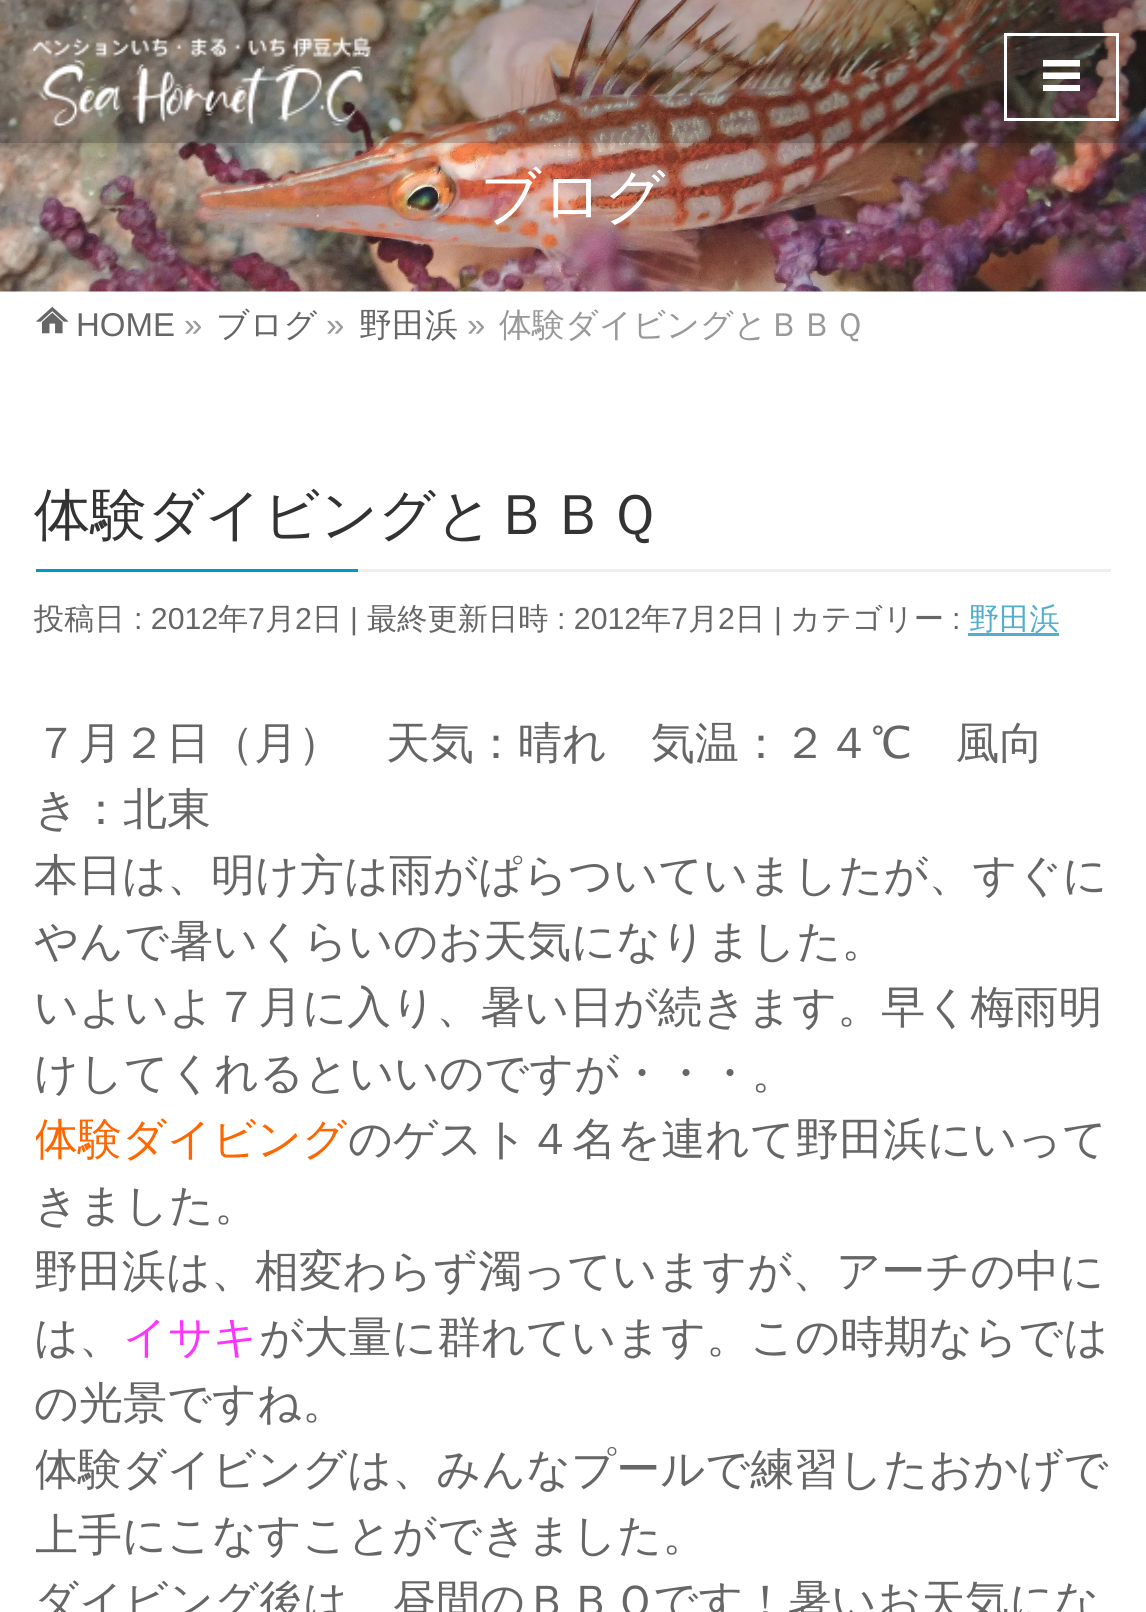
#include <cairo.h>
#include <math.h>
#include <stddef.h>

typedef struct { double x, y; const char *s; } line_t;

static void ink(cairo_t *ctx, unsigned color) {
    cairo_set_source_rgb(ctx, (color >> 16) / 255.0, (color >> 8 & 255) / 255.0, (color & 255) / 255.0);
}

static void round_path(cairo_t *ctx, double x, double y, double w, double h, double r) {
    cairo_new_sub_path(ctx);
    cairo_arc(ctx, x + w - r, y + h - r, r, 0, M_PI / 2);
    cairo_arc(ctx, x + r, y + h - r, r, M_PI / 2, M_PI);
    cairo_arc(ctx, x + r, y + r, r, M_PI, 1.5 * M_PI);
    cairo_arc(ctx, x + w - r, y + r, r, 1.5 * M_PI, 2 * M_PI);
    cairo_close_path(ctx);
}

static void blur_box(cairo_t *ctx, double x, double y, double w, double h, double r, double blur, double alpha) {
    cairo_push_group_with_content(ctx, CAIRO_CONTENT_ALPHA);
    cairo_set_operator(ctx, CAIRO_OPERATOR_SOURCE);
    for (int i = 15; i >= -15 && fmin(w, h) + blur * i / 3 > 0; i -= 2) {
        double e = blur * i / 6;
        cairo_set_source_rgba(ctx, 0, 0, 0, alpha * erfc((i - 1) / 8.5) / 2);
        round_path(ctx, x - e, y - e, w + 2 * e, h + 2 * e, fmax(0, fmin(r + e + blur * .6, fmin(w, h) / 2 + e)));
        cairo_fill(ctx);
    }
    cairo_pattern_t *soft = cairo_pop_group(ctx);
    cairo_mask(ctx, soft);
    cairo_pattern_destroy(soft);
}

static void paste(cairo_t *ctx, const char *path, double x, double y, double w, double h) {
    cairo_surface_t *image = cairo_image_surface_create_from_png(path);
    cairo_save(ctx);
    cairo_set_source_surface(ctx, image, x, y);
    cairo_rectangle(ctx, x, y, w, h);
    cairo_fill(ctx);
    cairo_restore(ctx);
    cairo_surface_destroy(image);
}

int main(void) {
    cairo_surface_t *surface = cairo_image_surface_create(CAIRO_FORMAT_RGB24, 1146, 1612);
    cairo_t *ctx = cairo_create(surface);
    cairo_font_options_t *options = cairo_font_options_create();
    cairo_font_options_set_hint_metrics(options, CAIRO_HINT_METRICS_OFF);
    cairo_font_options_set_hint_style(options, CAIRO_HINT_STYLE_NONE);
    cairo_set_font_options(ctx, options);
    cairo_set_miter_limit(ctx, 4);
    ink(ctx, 0xFFFFFF);
    cairo_paint(ctx);
    ink(ctx, 0xF9F9F9);
    cairo_rectangle(ctx, 0, 291, 1146, 1);
    cairo_fill(ctx);
    paste(ctx, "media/2.png", 0, 0, 1146, 292);
    cairo_save(ctx);
    cairo_rectangle(ctx, 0, 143, 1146, 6);
    cairo_clip(ctx);
    ink(ctx, 0x000000);
    blur_box(ctx, 0, 3, 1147, 143, 0, 4, 0.1);
    cairo_restore(ctx);
    cairo_set_source_rgba(ctx, 0, 0, 0, 0.25);
    cairo_rectangle(ctx, 0, 0, 1146, 143);
    cairo_fill(ctx);
    paste(ctx, "media/1.png", 31, 36, 342, 92);
    cairo_rectangle(ctx, 1005.5, 34.5, 112, 85);
    ink(ctx, 0xFFFFFF);
    cairo_set_line_width(ctx, 3);
    cairo_stroke(ctx);
    cairo_new_path(ctx);
    cairo_move_to(ctx, 1043, 60);
    cairo_line_to(ctx, 1043, 66.5);
    cairo_line_to(ctx, 1080, 66.5);
    cairo_line_to(ctx, 1080, 60);
    cairo_close_path(ctx);
    cairo_move_to(ctx, 1043, 72.5);
    cairo_line_to(ctx, 1043, 79);
    cairo_line_to(ctx, 1080, 79);
    cairo_line_to(ctx, 1080, 72.5);
    cairo_close_path(ctx);
    cairo_move_to(ctx, 1043, 85);
    cairo_line_to(ctx, 1043, 91);
    cairo_line_to(ctx, 1080, 91);
    cairo_line_to(ctx, 1080, 85);
    cairo_close_path(ctx);
    cairo_fill(ctx);
    cairo_select_font_face(ctx, "WenQuanYi Zen Hei Medium", CAIRO_FONT_SLANT_NORMAL, CAIRO_FONT_WEIGHT_NORMAL);
    cairo_set_font_size(ctx, 60.5);
    cairo_move_to(ctx, 480, 217);
    cairo_show_text(ctx, "ブログ");
    paste(ctx, "media/3.png", 36, 306, 33, 28);
    cairo_select_font_face(ctx, "Liberation Sans", CAIRO_FONT_SLANT_NORMAL, CAIRO_FONT_WEIGHT_NORMAL);
    cairo_set_font_size(ctx, 33);
    ink(ctx, 0x666666);
    cairo_move_to(ctx, 76, 336);
    cairo_show_text(ctx, "HOME");
    ink(ctx, 0x999999);
    cairo_move_to(ctx, 184, 336);
    cairo_show_text(ctx, "»");
    cairo_select_font_face(ctx, "WenQuanYi Zen Hei Medium", CAIRO_FONT_SLANT_NORMAL, CAIRO_FONT_WEIGHT_NORMAL);
    ink(ctx, 0x666666);
    cairo_move_to(ctx, 216, 336);
    cairo_show_text(ctx, "ブログ");
    cairo_select_font_face(ctx, "Liberation Sans", CAIRO_FONT_SLANT_NORMAL, CAIRO_FONT_WEIGHT_NORMAL);
    ink(ctx, 0x999999);
    cairo_move_to(ctx, 326, 336);
    cairo_show_text(ctx, "»");
    cairo_select_font_face(ctx, "WenQuanYi Zen Hei Medium", CAIRO_FONT_SLANT_NORMAL, CAIRO_FONT_WEIGHT_NORMAL);
    ink(ctx, 0x666666);
    cairo_move_to(ctx, 359, 336);
    cairo_show_text(ctx, "野田浜");
    cairo_select_font_face(ctx, "Liberation Sans", CAIRO_FONT_SLANT_NORMAL, CAIRO_FONT_WEIGHT_NORMAL);
    ink(ctx, 0x999999);
    cairo_move_to(ctx, 467, 336);
    cairo_show_text(ctx, "»");
    cairo_select_font_face(ctx, "WenQuanYi Zen Hei Medium", CAIRO_FONT_SLANT_NORMAL, CAIRO_FONT_WEIGHT_NORMAL);
    cairo_move_to(ctx, 499, 336);
    cairo_show_text(ctx, "体験ダイビングとＢＢＱ");
    ink(ctx, 0xEEEEEE);
    cairo_rectangle(ctx, 358, 569, 753, 3);
    cairo_fill(ctx);
    cairo_set_font_size(ctx, 56.5);
    ink(ctx, 0x333333);
    cairo_move_to(ctx, 34, 534);
    cairo_show_text(ctx, "体験ダイビングとＢＢＱ");
    ink(ctx, 0x0099CC);
    cairo_rectangle(ctx, 36, 569, 322, 3);
    cairo_fill(ctx);
    cairo_set_font_size(ctx, 30.25);
    ink(ctx, 0x666666);
    cairo_move_to(ctx, 34, 629);
    cairo_show_text(ctx, "投稿日");
    cairo_select_font_face(ctx, "Liberation Sans", CAIRO_FONT_SLANT_NORMAL, CAIRO_FONT_WEIGHT_NORMAL);
    cairo_move_to(ctx, 134, 629);
    cairo_show_text(ctx, ": 2012");
    cairo_select_font_face(ctx, "WenQuanYi Zen Hei Medium", CAIRO_FONT_SLANT_NORMAL, CAIRO_FONT_WEIGHT_NORMAL);
    cairo_move_to(ctx, 218, 629);
    cairo_show_text(ctx, "年");
    cairo_select_font_face(ctx, "Liberation Sans", CAIRO_FONT_SLANT_NORMAL, CAIRO_FONT_WEIGHT_NORMAL);
    cairo_move_to(ctx, 248, 629);
    cairo_show_text(ctx, "7");
    cairo_select_font_face(ctx, "WenQuanYi Zen Hei Medium", CAIRO_FONT_SLANT_NORMAL, CAIRO_FONT_WEIGHT_NORMAL);
    cairo_move_to(ctx, 265, 629);
    cairo_show_text(ctx, "月");
    cairo_select_font_face(ctx, "Liberation Sans", CAIRO_FONT_SLANT_NORMAL, CAIRO_FONT_WEIGHT_NORMAL);
    cairo_move_to(ctx, 295, 629);
    cairo_show_text(ctx, "2");
    cairo_select_font_face(ctx, "WenQuanYi Zen Hei Medium", CAIRO_FONT_SLANT_NORMAL, CAIRO_FONT_WEIGHT_NORMAL);
    cairo_move_to(ctx, 312, 629);
    cairo_show_text(ctx, "日");
    cairo_select_font_face(ctx, "Liberation Sans", CAIRO_FONT_SLANT_NORMAL, CAIRO_FONT_WEIGHT_NORMAL);
    cairo_move_to(ctx, 350, 629);
    cairo_show_text(ctx, "|");
    cairo_select_font_face(ctx, "WenQuanYi Zen Hei Medium", CAIRO_FONT_SLANT_NORMAL, CAIRO_FONT_WEIGHT_NORMAL);
    cairo_move_to(ctx, 367, 629);
    cairo_show_text(ctx, "最終更新日時");
    cairo_select_font_face(ctx, "Liberation Sans", CAIRO_FONT_SLANT_NORMAL, CAIRO_FONT_WEIGHT_NORMAL);
    cairo_move_to(ctx, 557, 629);
    cairo_show_text(ctx, ": 2012");
    cairo_select_font_face(ctx, "WenQuanYi Zen Hei Medium", CAIRO_FONT_SLANT_NORMAL, CAIRO_FONT_WEIGHT_NORMAL);
    cairo_move_to(ctx, 641, 629);
    cairo_show_text(ctx, "年");
    cairo_select_font_face(ctx, "Liberation Sans", CAIRO_FONT_SLANT_NORMAL, CAIRO_FONT_WEIGHT_NORMAL);
    cairo_move_to(ctx, 671, 629);
    cairo_show_text(ctx, "7");
    cairo_select_font_face(ctx, "WenQuanYi Zen Hei Medium", CAIRO_FONT_SLANT_NORMAL, CAIRO_FONT_WEIGHT_NORMAL);
    cairo_move_to(ctx, 688, 629);
    cairo_show_text(ctx, "月");
    cairo_select_font_face(ctx, "Liberation Sans", CAIRO_FONT_SLANT_NORMAL, CAIRO_FONT_WEIGHT_NORMAL);
    cairo_move_to(ctx, 718, 629);
    cairo_show_text(ctx, "2");
    cairo_select_font_face(ctx, "WenQuanYi Zen Hei Medium", CAIRO_FONT_SLANT_NORMAL, CAIRO_FONT_WEIGHT_NORMAL);
    cairo_move_to(ctx, 735, 629);
    cairo_show_text(ctx, "日");
    cairo_select_font_face(ctx, "Liberation Sans", CAIRO_FONT_SLANT_NORMAL, CAIRO_FONT_WEIGHT_NORMAL);
    cairo_move_to(ctx, 774, 629);
    cairo_show_text(ctx, "|");
    cairo_select_font_face(ctx, "WenQuanYi Zen Hei Medium", CAIRO_FONT_SLANT_NORMAL, CAIRO_FONT_WEIGHT_NORMAL);
    cairo_move_to(ctx, 790, 629);
    cairo_show_text(ctx, "カテゴリー");
    cairo_select_font_face(ctx, "Liberation Sans", CAIRO_FONT_SLANT_NORMAL, CAIRO_FONT_WEIGHT_NORMAL);
    cairo_move_to(ctx, 952, 629);
    cairo_show_text(ctx, ":");
    ink(ctx, 0x53ADCC);
    cairo_rectangle(ctx, 968, 633, 91, 3);
    cairo_fill(ctx);
    cairo_select_font_face(ctx, "WenQuanYi Zen Hei Medium", CAIRO_FONT_SLANT_NORMAL, CAIRO_FONT_WEIGHT_NORMAL);
    cairo_move_to(ctx, 969, 629);
    cairo_show_text(ctx, "野田浜");
    cairo_set_font_size(ctx, 44);
    ink(ctx, 0x666666);
    {
        static const line_t items[] = {
            {34, 758, "７月２日（月）　天気：晴れ　気温：２４℃　風向"},
            {34, 824, "き：北東"},
            {34, 890, "本日は、明け方は雨がぱらついていましたが、すぐに"},
            {34, 956, "やんで暑いくらいのお天気になりました。"},
            {34, 1022, "いよいよ７月に入り、暑い日が続きます。早く梅雨明"},
            {34, 1088, "けしてくれるといいのですが・・・。"},
        };
        for (size_t i = 0; i < sizeof items / sizeof *items; i++) {
            cairo_move_to(ctx, items[i].x, items[i].y);
            cairo_show_text(ctx, items[i].s);
        }
    }
    cairo_save(ctx);
    cairo_rectangle(ctx, 36, 712, 1075, 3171);
    cairo_clip(ctx);
    ink(ctx, 0xFF6600);
    cairo_move_to(ctx, 34, 1154);
    cairo_show_text(ctx, "体験ダイビング");
    cairo_restore(ctx);
    {
        static const line_t items[] = {
            {348, 1154, "のゲスト４名を連れて野田浜にいって"},
            {34, 1220, "きました。"},
            {34, 1286, "野田浜は、相変わらず濁っていますが、アーチの中に"},
            {34, 1352, "は、"},
        };
        for (size_t i = 0; i < sizeof items / sizeof *items; i++) {
            cairo_move_to(ctx, items[i].x, items[i].y);
            cairo_show_text(ctx, items[i].s);
        }
    }
    ink(ctx, 0xFF33FF);
    cairo_move_to(ctx, 123, 1352);
    cairo_show_text(ctx, "イサキ");
    ink(ctx, 0x666666);
    cairo_move_to(ctx, 259, 1352);
    cairo_show_text(ctx, "が大量に群れています。この時期ならでは");
    cairo_move_to(ctx, 34, 1418);
    cairo_show_text(ctx, "の光景ですね。");
    cairo_save(ctx);
    cairo_rectangle(ctx, 36, 712, 1075, 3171);
    cairo_clip(ctx);
    cairo_move_to(ctx, 34, 1484);
    cairo_show_text(ctx, "体験ダイビングは、みんなプールで練習したおかげで");
    cairo_move_to(ctx, 34, 1550);
    cairo_show_text(ctx, "上手にこなすことができました。");
    cairo_restore(ctx);
    cairo_move_to(ctx, 34, 1616);
    cairo_show_text(ctx, "ダイビング後は、昼間のＢＢＱです！暑いお天気にな");
    cairo_surface_write_to_png(surface, "image.png");
    cairo_font_options_destroy(options);
    cairo_destroy(ctx);
    cairo_surface_destroy(surface);
    return 0;
}
